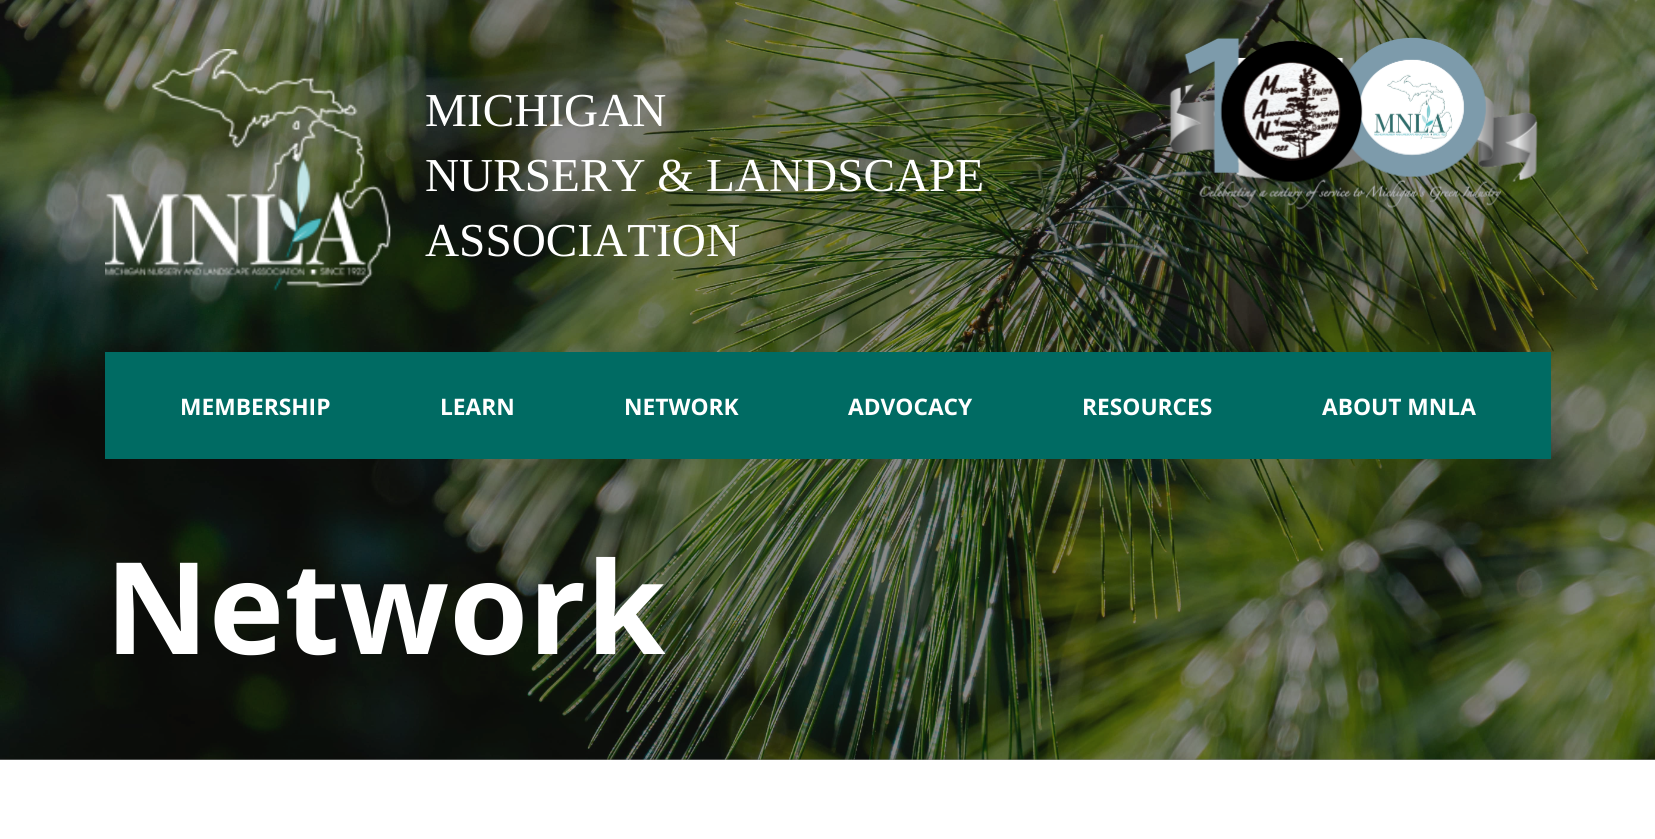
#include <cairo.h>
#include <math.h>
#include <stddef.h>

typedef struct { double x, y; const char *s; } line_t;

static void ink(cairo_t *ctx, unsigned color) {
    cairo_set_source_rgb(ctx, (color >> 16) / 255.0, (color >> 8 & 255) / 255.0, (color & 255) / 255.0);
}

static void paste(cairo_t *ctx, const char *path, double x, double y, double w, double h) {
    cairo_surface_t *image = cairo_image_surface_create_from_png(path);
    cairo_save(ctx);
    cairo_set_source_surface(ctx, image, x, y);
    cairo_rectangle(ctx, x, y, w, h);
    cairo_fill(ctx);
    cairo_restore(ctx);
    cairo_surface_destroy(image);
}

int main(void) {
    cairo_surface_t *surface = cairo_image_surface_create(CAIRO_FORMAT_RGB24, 1655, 839);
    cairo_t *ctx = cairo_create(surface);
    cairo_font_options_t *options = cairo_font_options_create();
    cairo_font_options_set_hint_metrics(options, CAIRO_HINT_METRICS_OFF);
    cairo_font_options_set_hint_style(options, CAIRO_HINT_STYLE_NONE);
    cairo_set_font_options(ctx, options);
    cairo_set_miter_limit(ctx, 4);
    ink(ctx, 0xFFFFFF);
    cairo_paint(ctx);
    ink(ctx, 0x898989);
    cairo_rectangle(ctx, 0, 759, 1655, 1);
    cairo_fill(ctx);
    paste(ctx, "media/3.png", 0, 0, 1655, 760);
    paste(ctx, "media/1.png", 105, 49, 286, 242);
    cairo_select_font_face(ctx, "Liberation Serif", CAIRO_FONT_SLANT_NORMAL, CAIRO_FONT_WEIGHT_NORMAL);
    cairo_set_font_size(ctx, 47.25);
    ink(ctx, 0xFFFFFF);
    {
        static const line_t items[] = {
            {425, 126, "MICHIGAN"},
            {425, 191, "NURSERY & LANDSCAPE"},
            {425, 256, "ASSOCIATION"},
        };
        for (size_t i = 0; i < sizeof items / sizeof *items; i++) {
            cairo_move_to(ctx, items[i].x, items[i].y);
            cairo_show_text(ctx, items[i].s);
        }
    }
    paste(ctx, "media/2.png", 1169, 37, 369, 173);
    ink(ctx, 0x006B63);
    cairo_rectangle(ctx, 105, 352, 1446, 107);
    cairo_fill(ctx);
    cairo_select_font_face(ctx, "Open Sans", CAIRO_FONT_SLANT_NORMAL, CAIRO_FONT_WEIGHT_BOLD);
    cairo_set_font_size(ctx, 22.75);
    ink(ctx, 0xFFFFFF);
    {
        static const line_t items[] = {
            {180, 415, "MEMBERSHIP"},
            {440, 415, "LEARN"},
            {624, 415, "NETWORK"},
            {848, 415, "ADVOCACY"},
            {1082, 415, "RESOURCES"},
            {1322, 415, "ABOUT MNLA"},
        };
        for (size_t i = 0; i < sizeof items / sizeof *items; i++) {
            cairo_move_to(ctx, items[i].x, items[i].y);
            cairo_show_text(ctx, items[i].s);
        }
    }
    cairo_set_font_size(ctx, 127.75);
    cairo_move_to(ctx, 105, 654);
    cairo_show_text(ctx, "Network");
    cairo_surface_write_to_png(surface, "image.png");
    cairo_font_options_destroy(options);
    cairo_destroy(ctx);
    cairo_surface_destroy(surface);
    return 0;
}
